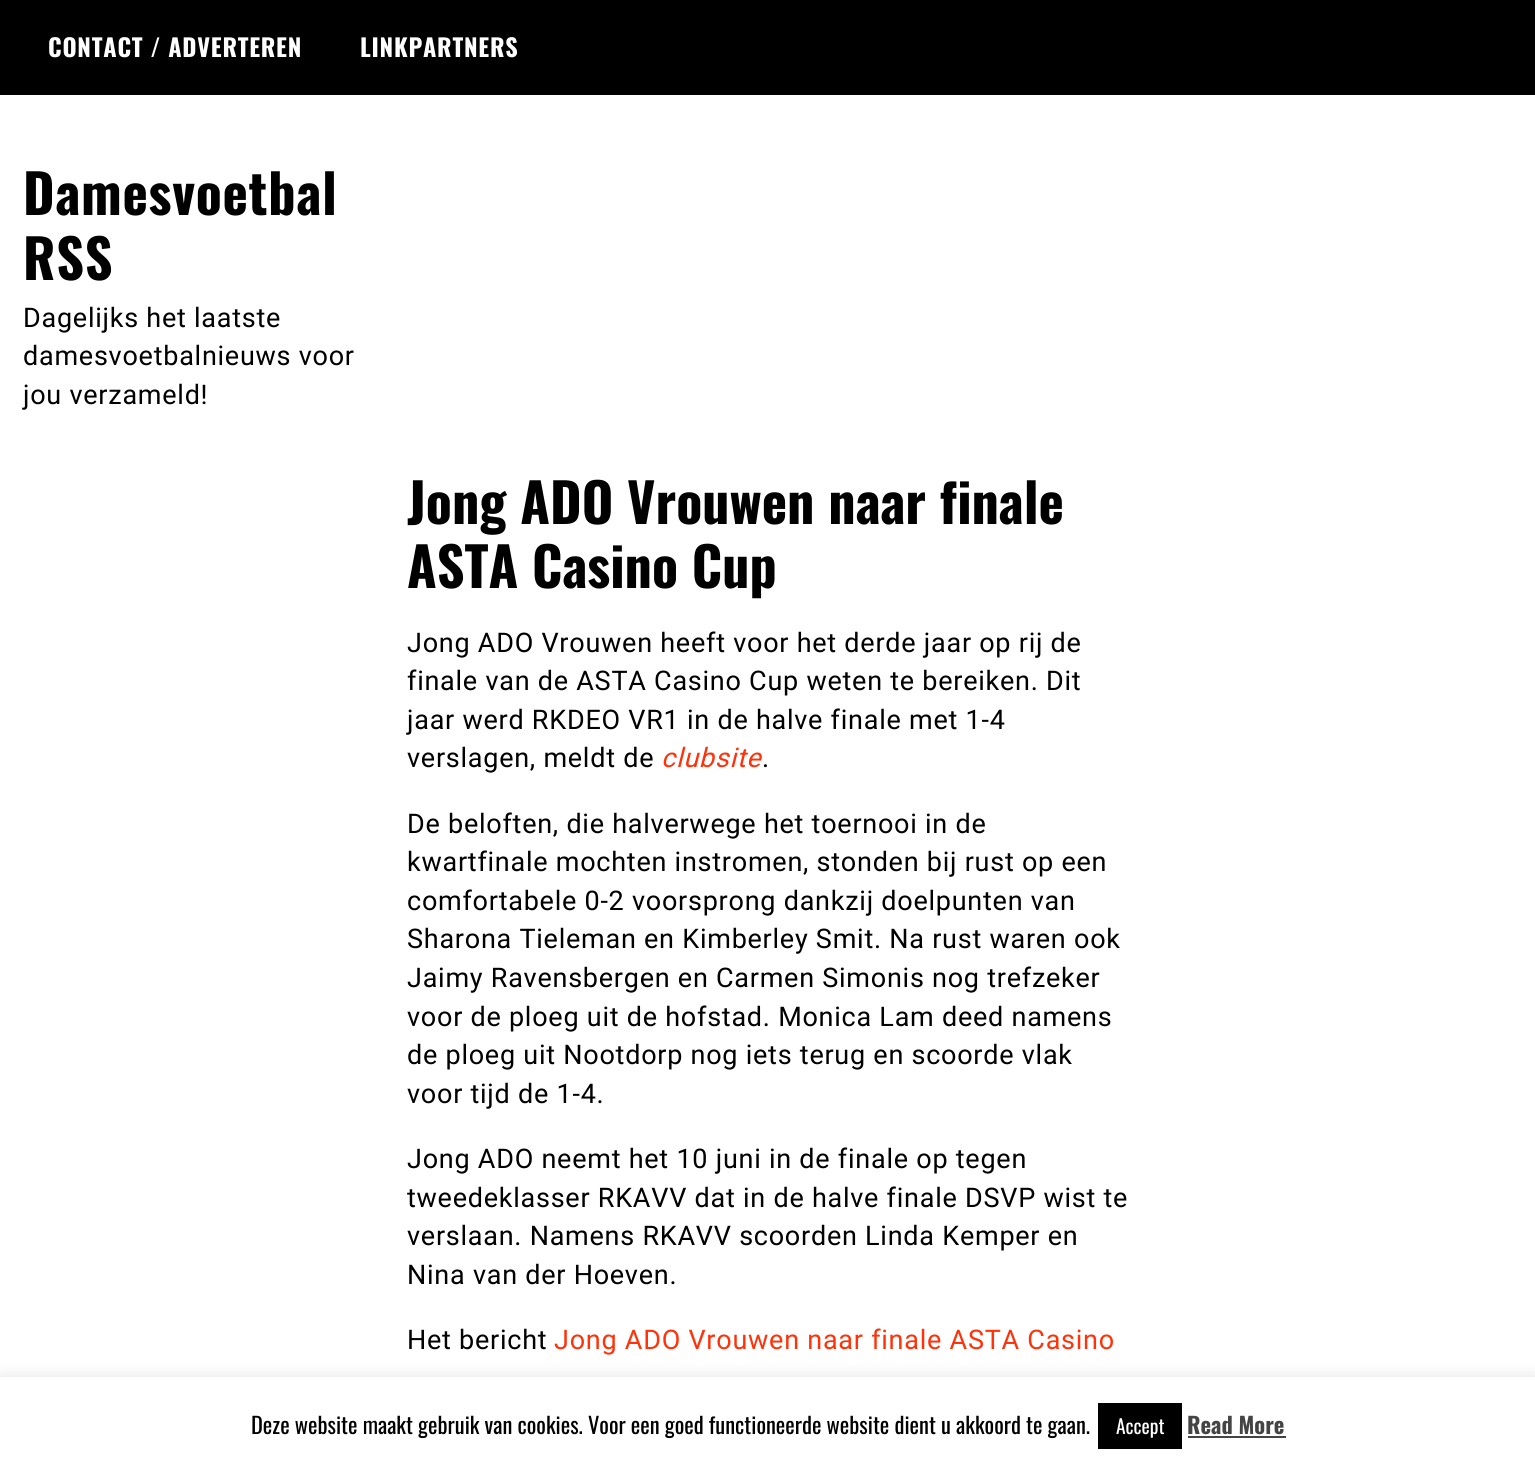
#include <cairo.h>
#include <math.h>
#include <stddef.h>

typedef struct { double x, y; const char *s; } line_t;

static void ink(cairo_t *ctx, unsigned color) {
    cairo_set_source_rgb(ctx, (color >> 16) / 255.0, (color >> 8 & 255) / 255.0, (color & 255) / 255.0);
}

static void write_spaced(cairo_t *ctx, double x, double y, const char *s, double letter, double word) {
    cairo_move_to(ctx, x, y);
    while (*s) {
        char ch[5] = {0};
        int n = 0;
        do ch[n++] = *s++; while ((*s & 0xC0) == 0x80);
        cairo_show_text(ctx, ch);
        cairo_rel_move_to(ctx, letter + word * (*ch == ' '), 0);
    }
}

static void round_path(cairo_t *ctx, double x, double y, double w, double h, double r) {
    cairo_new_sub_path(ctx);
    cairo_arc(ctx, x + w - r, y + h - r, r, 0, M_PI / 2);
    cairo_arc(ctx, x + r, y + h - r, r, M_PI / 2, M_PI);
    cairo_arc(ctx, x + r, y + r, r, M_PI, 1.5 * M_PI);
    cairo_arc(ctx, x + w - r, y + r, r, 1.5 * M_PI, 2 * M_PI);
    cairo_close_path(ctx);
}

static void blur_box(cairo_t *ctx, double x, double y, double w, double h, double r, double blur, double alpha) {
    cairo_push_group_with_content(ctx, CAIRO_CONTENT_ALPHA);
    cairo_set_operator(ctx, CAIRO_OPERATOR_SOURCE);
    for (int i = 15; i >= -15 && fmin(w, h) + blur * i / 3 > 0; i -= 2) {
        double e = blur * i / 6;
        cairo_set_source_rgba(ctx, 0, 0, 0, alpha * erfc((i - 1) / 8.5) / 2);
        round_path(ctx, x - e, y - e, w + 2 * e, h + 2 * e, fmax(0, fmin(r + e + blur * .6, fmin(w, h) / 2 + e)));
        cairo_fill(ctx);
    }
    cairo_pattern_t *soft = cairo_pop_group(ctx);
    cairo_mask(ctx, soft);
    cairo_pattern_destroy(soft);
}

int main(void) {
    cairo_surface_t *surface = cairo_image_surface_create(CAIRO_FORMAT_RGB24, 1535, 1467);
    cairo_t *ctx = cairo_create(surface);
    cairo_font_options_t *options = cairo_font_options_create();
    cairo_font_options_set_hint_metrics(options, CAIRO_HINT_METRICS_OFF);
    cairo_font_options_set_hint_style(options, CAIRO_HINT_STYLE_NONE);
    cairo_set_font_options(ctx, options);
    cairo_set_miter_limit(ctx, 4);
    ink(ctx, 0xFFFFFF);
    cairo_paint(ctx);
    ink(ctx, 0x000000);
    cairo_rectangle(ctx, 0, 0, 1535, 95);
    cairo_fill(ctx);
    cairo_select_font_face(ctx, "Oswald", CAIRO_FONT_SLANT_NORMAL, CAIRO_FONT_WEIGHT_BOLD);
    cairo_set_font_size(ctx, 24.25);
    ink(ctx, 0xFFFFFF);
    write_spaced(ctx, 48, 57, "CONTACT / ADVERTEREN", 0.75, 0);
    write_spaced(ctx, 360, 57, "LINKPARTNERS", 0.75, 0);
    cairo_set_font_size(ctx, 54);
    ink(ctx, 0x000000);
    write_spaced(ctx, 23, 215, "Damesvoetbal", 0.75, 0);
    write_spaced(ctx, 23, 280, "RSS", 0.75, 0);
    cairo_select_font_face(ctx, "Roboto", CAIRO_FONT_SLANT_NORMAL, CAIRO_FONT_WEIGHT_NORMAL);
    cairo_set_font_size(ctx, 27);
    {
        static const line_t items[] = {
            {23, 327, "Dagelijks het laatste"},
            {23, 365, "damesvoetbalnieuws voor"},
            {23, 404, "jou verzameld!"},
        };
        for (size_t i = 0; i < sizeof items / sizeof *items; i++) {
            write_spaced(ctx, items[i].x, items[i].y, items[i].s, 0.75, 0);
        }
    }
    cairo_select_font_face(ctx, "Oswald", CAIRO_FONT_SLANT_NORMAL, CAIRO_FONT_WEIGHT_BOLD);
    cairo_set_font_size(ctx, 54);
    cairo_move_to(ctx, 407, 524);
    cairo_show_text(ctx, "Jong ADO Vrouwen naar finale");
    cairo_move_to(ctx, 407, 588);
    cairo_show_text(ctx, "ASTA Casino Cup");
    cairo_select_font_face(ctx, "Roboto", CAIRO_FONT_SLANT_NORMAL, CAIRO_FONT_WEIGHT_NORMAL);
    cairo_set_font_size(ctx, 27);
    {
        static const line_t items[] = {
            {407, 652, "Jong ADO Vrouwen heeft voor het derde jaar op rij de"},
            {407, 690, "finale van de ASTA Casino Cup weten te bereiken. Dit"},
            {407, 729, "jaar werd RKDEO VR1 in de halve finale met 1-4"},
            {407, 767, "verslagen, meldt de"},
        };
        for (size_t i = 0; i < sizeof items / sizeof *items; i++) {
            write_spaced(ctx, items[i].x, items[i].y, items[i].s, 0.75, 0);
        }
    }
    cairo_select_font_face(ctx, "Roboto", CAIRO_FONT_SLANT_ITALIC, CAIRO_FONT_WEIGHT_NORMAL);
    ink(ctx, 0xFF3209);
    write_spaced(ctx, 661, 767, "clubsite", 0.75, 0);
    cairo_select_font_face(ctx, "Roboto", CAIRO_FONT_SLANT_NORMAL, CAIRO_FONT_WEIGHT_NORMAL);
    ink(ctx, 0x000000);
    {
        static const line_t items[] = {
            {762, 767, "."},
            {407, 833, "De beloften, die halverwege het toernooi in de"},
            {407, 871, "kwartfinale mochten instromen, stonden bij rust op een"},
            {407, 910, "comfortabele 0-2 voorsprong dankzij doelpunten van"},
            {407, 948, "Sharona Tieleman en Kimberley Smit. Na rust waren ook"},
            {407, 987, "Jaimy Ravensbergen en Carmen Simonis nog trefzeker"},
            {407, 1026, "voor de ploeg uit de hofstad. Monica Lam deed namens"},
            {407, 1064, "de ploeg uit Nootdorp nog iets terug en scoorde vlak"},
            {407, 1103, "voor tijd de 1-4."},
            {407, 1168, "Jong ADO neemt het 10 juni in de finale op tegen"},
            {407, 1207, "tweedeklasser RKAVV dat in de halve finale DSVP wist te"},
            {407, 1245, "verslaan. Namens RKAVV scoorden Linda Kemper en"},
            {407, 1284, "Nina van der Hoeven."},
            {407, 1349, "Het bericht"},
        };
        for (size_t i = 0; i < sizeof items / sizeof *items; i++) {
            write_spaced(ctx, items[i].x, items[i].y, items[i].s, 0.75, 0);
        }
    }
    ink(ctx, 0xFF3209);
    write_spaced(ctx, 554, 1349, "Jong ADO Vrouwen naar finale ASTA Casino", 0.75, 0);
    ink(ctx, 0xACABAB);
    blur_box(ctx, 0, 1376, 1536, 90, 0, 7.5, 0.3);
    ink(ctx, 0xFFFFFF);
    cairo_rectangle(ctx, 0, 1377, 1535, 90);
    cairo_fill(ctx);
    cairo_select_font_face(ctx, "Oswald", CAIRO_FONT_SLANT_NORMAL, CAIRO_FONT_WEIGHT_NORMAL);
    cairo_set_font_size(ctx, 22.5);
    ink(ctx, 0x000000);
    cairo_move_to(ctx, 251, 1434);
    cairo_show_text(ctx, "Deze website maakt gebruik van cookies. Voor een goed functioneerde website dient u akkoord te gaan.");
    cairo_rectangle(ctx, 1098, 1403, 84, 46);
    cairo_fill(ctx);
    cairo_set_font_size(ctx, 19.5);
    ink(ctx, 0xFFFFFF);
    cairo_move_to(ctx, 1116, 1434);
    cairo_show_text(ctx, "Accept");
    cairo_select_font_face(ctx, "Oswald", CAIRO_FONT_SLANT_NORMAL, CAIRO_FONT_WEIGHT_BOLD);
    cairo_set_font_size(ctx, 22.5);
    ink(ctx, 0x444444);
    cairo_move_to(ctx, 1187, 1434);
    cairo_show_text(ctx, "Read More");
    cairo_rectangle(ctx, 1188, 1436, 98, 2);
    cairo_fill(ctx);
    cairo_surface_write_to_png(surface, "image.png");
    cairo_font_options_destroy(options);
    cairo_destroy(ctx);
    cairo_surface_destroy(surface);
    return 0;
}
